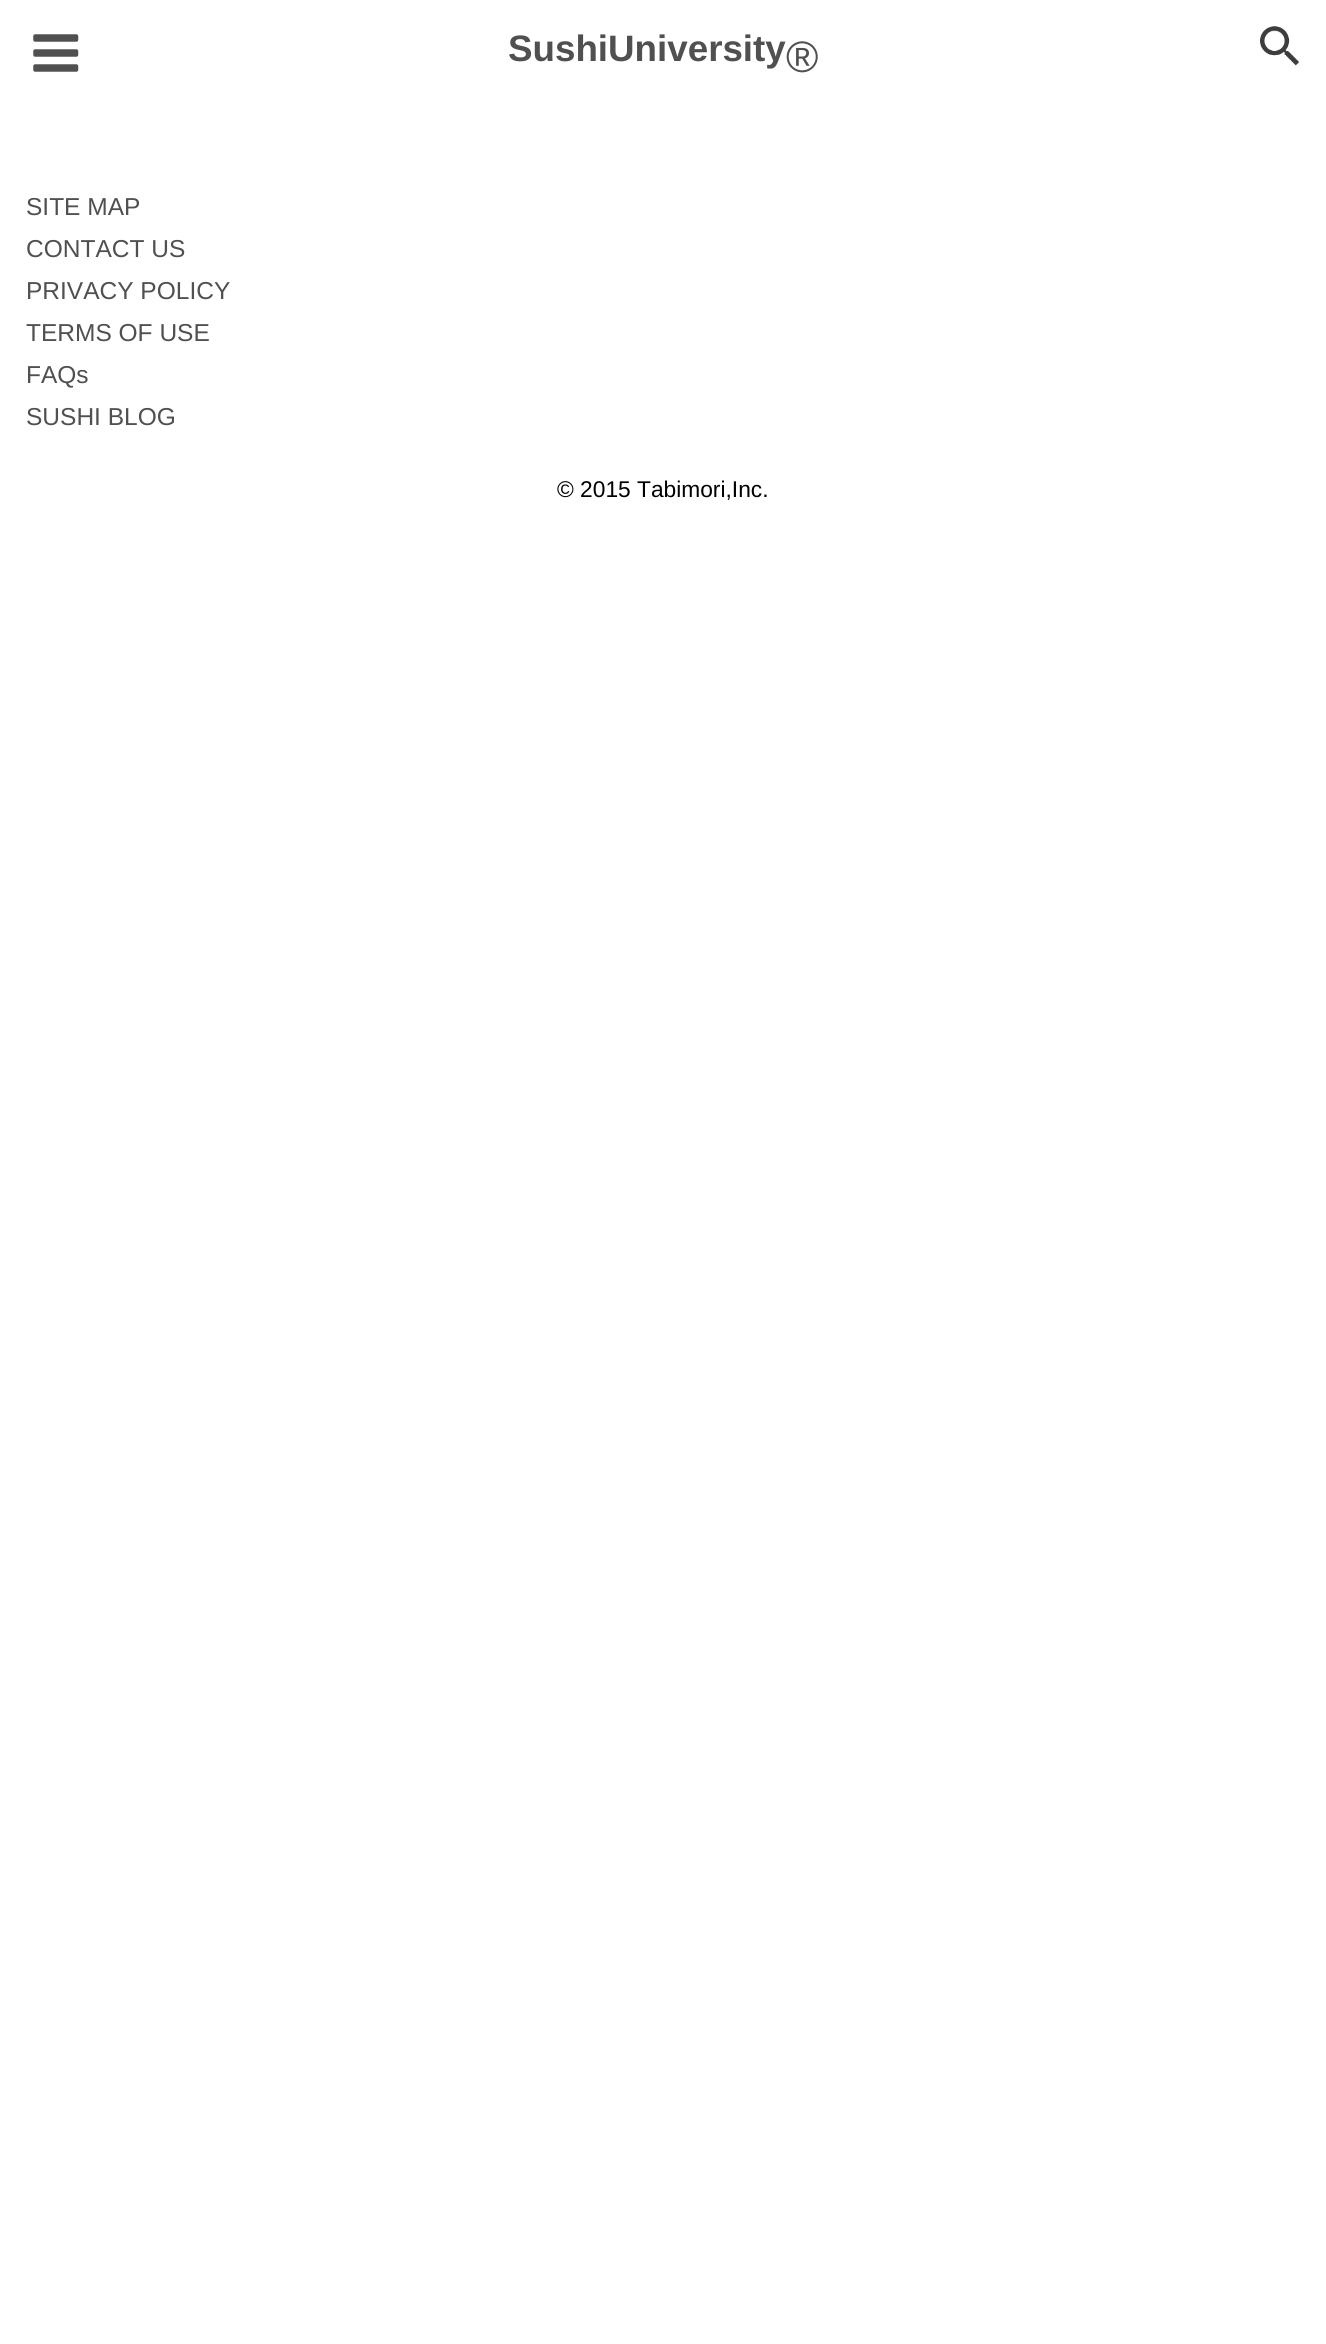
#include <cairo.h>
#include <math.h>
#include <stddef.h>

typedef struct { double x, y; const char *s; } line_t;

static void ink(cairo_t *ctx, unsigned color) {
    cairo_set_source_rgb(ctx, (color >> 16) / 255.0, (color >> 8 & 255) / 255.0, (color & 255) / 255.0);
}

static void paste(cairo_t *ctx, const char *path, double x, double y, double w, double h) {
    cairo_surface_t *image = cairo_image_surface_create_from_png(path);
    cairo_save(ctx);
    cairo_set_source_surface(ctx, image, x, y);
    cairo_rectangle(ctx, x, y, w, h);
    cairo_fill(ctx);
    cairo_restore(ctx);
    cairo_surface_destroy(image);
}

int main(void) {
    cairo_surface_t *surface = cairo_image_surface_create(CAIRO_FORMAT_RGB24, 1326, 2344);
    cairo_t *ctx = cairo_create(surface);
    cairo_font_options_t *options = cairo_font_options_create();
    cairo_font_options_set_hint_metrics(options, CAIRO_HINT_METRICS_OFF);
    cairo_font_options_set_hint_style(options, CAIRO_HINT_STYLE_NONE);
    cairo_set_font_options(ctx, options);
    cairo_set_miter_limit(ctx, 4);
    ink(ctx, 0xFFFFFF);
    cairo_paint(ctx);
    paste(ctx, "media/1.png", 33, 34, 46, 38);
    cairo_select_font_face(ctx, "Liberation Sans", CAIRO_FONT_SLANT_NORMAL, CAIRO_FONT_WEIGHT_BOLD);
    cairo_set_font_size(ctx, 36.75);
    ink(ctx, 0x505050);
    cairo_move_to(ctx, 508, 61);
    cairo_show_text(ctx, "SushiUniversity");
    cairo_select_font_face(ctx, "Liberation Sans", CAIRO_FONT_SLANT_NORMAL, CAIRO_FONT_WEIGHT_NORMAL);
    cairo_set_font_size(ctx, 44);
    cairo_move_to(ctx, 786, 72);
    cairo_show_text(ctx, "®");
    paste(ctx, "media/2.png", 1260, 26, 39, 40);
    cairo_set_font_size(ctx, 24.5);
    {
        static const line_t items[] = {
            {26, 215, "SITE MAP"},
            {26, 257, "CONTACT US"},
            {26, 299, "PRIVACY POLICY"},
            {26, 341, "TERMS OF USE"},
            {26, 383, "FAQs"},
            {26, 425, "SUSHI BLOG"},
        };
        for (size_t i = 0; i < sizeof items / sizeof *items; i++) {
            cairo_move_to(ctx, items[i].x, items[i].y);
            cairo_show_text(ctx, items[i].s);
        }
    }
    cairo_set_font_size(ctx, 22.75);
    ink(ctx, 0x000000);
    cairo_move_to(ctx, 557, 497);
    cairo_show_text(ctx, "© 2015 Tabimori,Inc.");
    cairo_surface_write_to_png(surface, "image.png");
    cairo_font_options_destroy(options);
    cairo_destroy(ctx);
    cairo_surface_destroy(surface);
    return 0;
}
